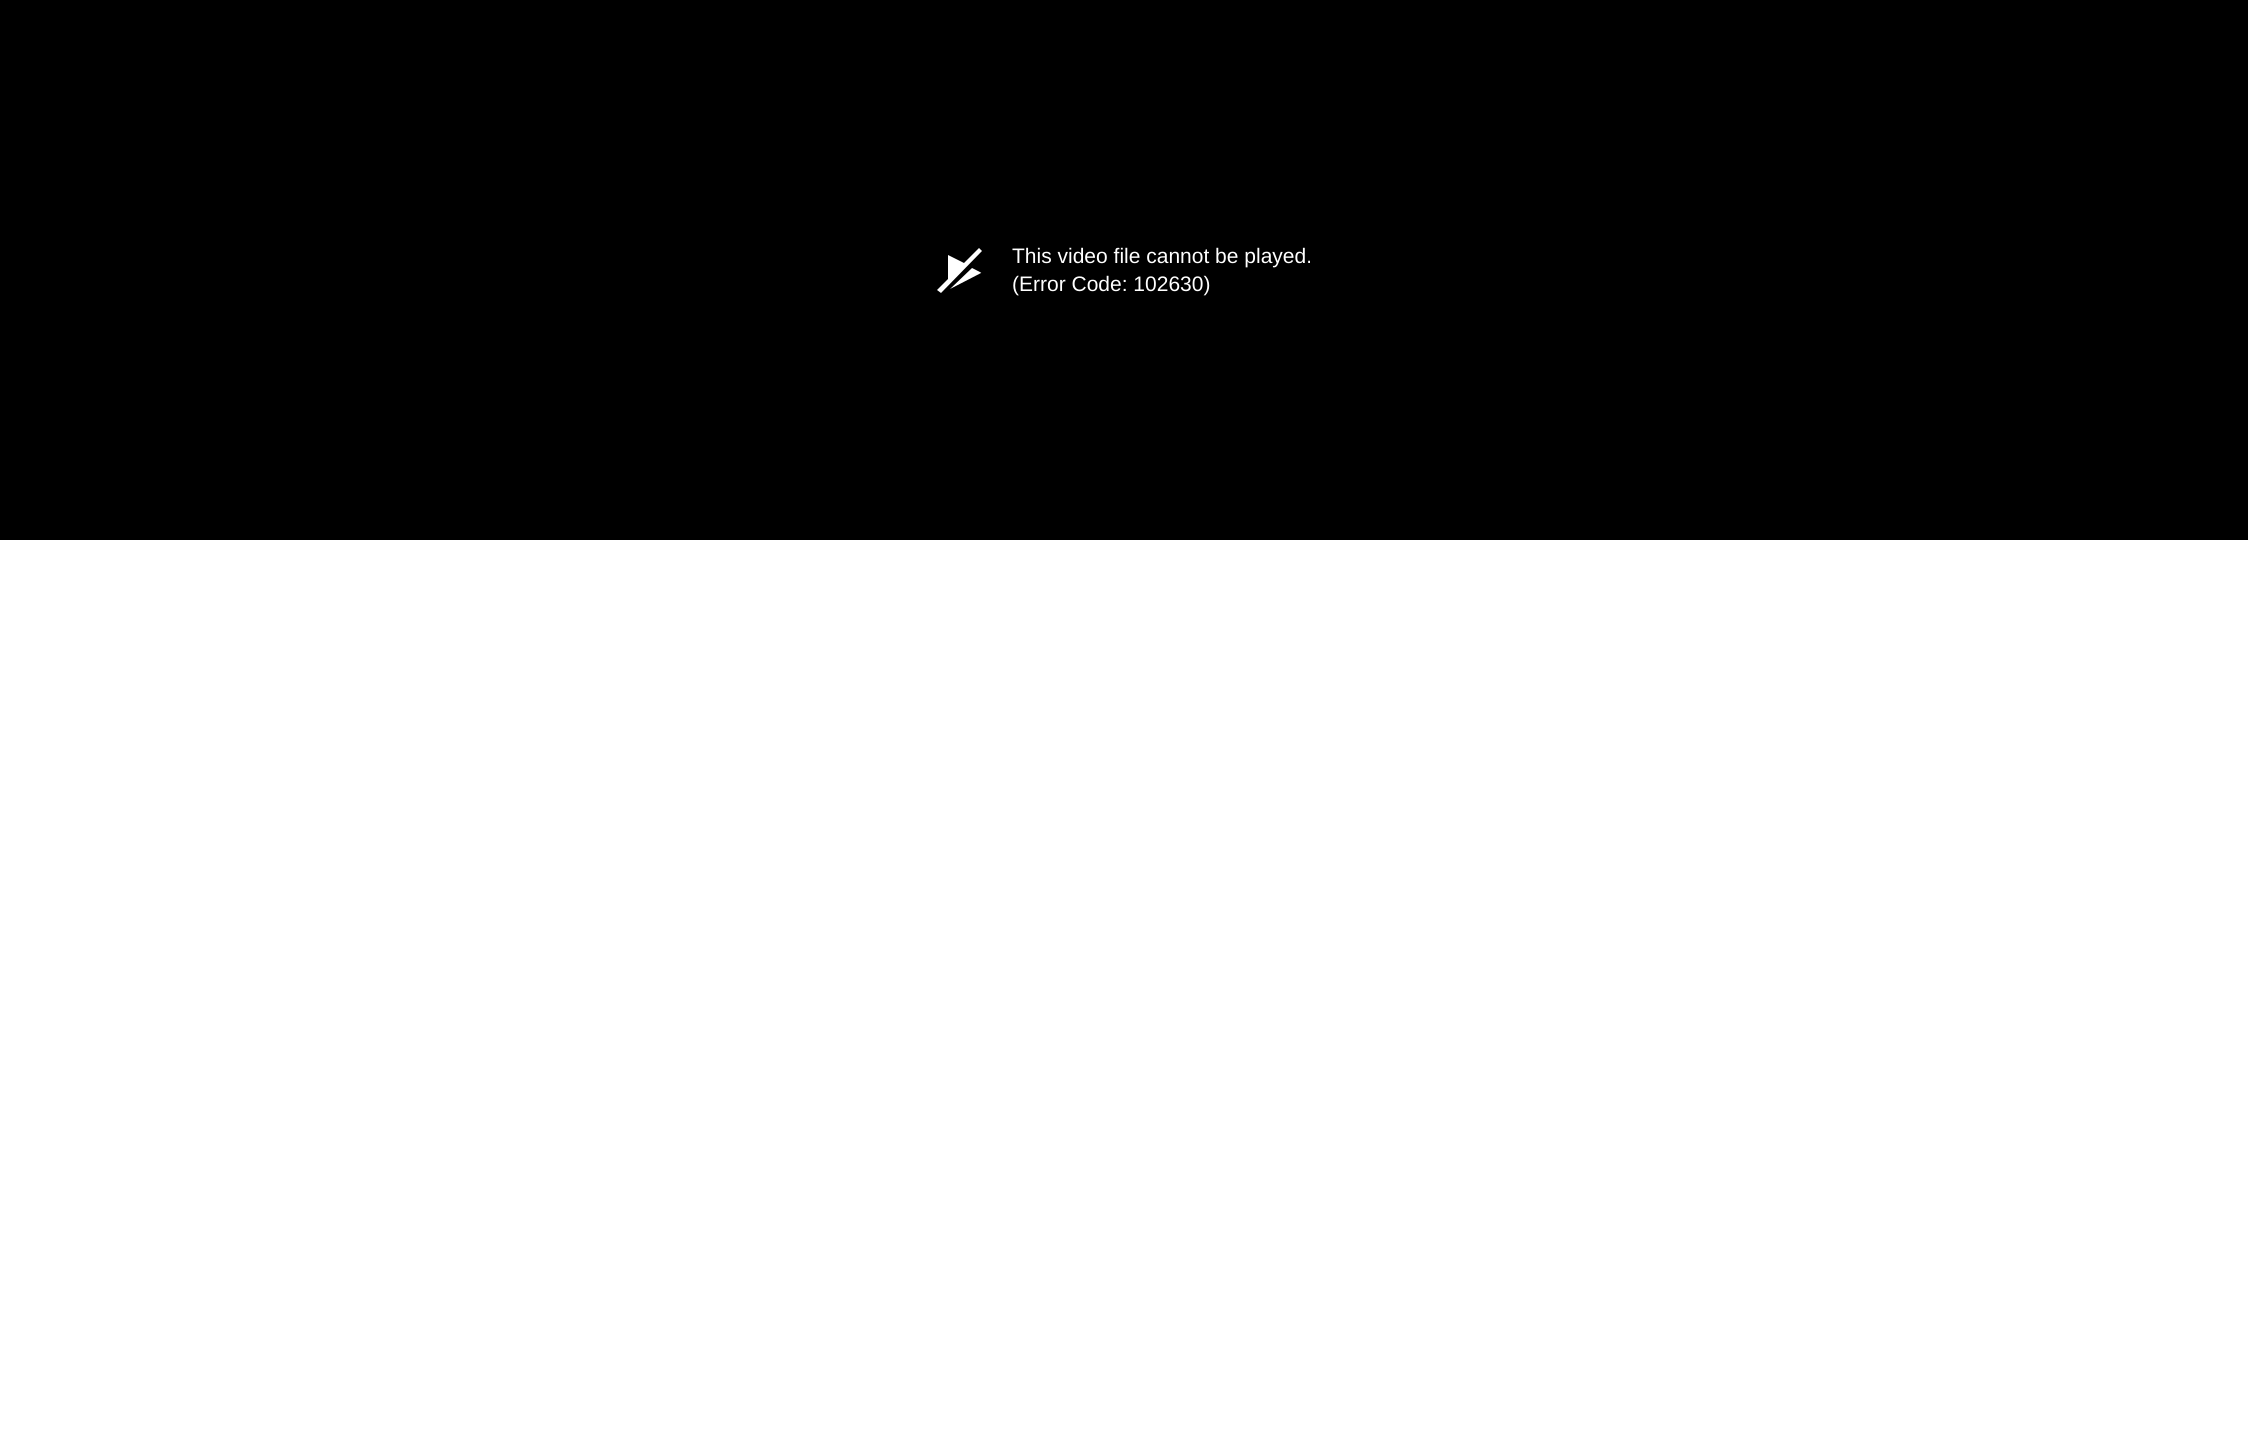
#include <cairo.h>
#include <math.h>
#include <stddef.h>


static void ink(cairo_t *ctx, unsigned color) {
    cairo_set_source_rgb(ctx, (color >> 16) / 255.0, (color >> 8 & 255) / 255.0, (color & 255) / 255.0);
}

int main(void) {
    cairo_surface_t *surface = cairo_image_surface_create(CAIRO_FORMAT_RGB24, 2248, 1445);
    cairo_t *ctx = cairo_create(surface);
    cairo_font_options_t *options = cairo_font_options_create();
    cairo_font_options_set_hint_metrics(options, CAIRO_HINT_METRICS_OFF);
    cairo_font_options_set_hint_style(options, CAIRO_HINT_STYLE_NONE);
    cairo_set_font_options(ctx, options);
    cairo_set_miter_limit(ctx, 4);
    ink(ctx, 0xFFFFFF);
    cairo_paint(ctx);
    ink(ctx, 0x000000);
    cairo_rectangle(ctx, 0, 0, 2248, 540);
    cairo_fill(ctx);
    ink(ctx, 0xFFFFFF);
    cairo_new_path(ctx);
    cairo_move_to(ctx, 981, 273);
    cairo_line_to(ctx, 950, 289);
    cairo_line_to(ctx, 972, 268);
    cairo_curve_to(ctx, 980, 272, 982, 273, 981, 273);
    cairo_close_path(ctx);
    cairo_move_to(ctx, 979, 248);
    cairo_line_to(ctx, 964, 263);
    cairo_line_to(ctx, 948, 255);
    cairo_line_to(ctx, 948, 279);
    cairo_line_to(ctx, 937, 290);
    cairo_line_to(ctx, 941, 293);
    cairo_line_to(ctx, 982, 251);
    cairo_close_path(ctx);
    cairo_fill(ctx);
    cairo_select_font_face(ctx, "Liberation Sans", CAIRO_FONT_SLANT_NORMAL, CAIRO_FONT_WEIGHT_NORMAL);
    cairo_set_font_size(ctx, 21);
    cairo_move_to(ctx, 1012, 263);
    cairo_show_text(ctx, "This video file cannot be played.");
    cairo_move_to(ctx, 1012, 291);
    cairo_show_text(ctx, "(Error Code: 102630)");
    cairo_surface_write_to_png(surface, "image.png");
    cairo_font_options_destroy(options);
    cairo_destroy(ctx);
    cairo_surface_destroy(surface);
    return 0;
}
